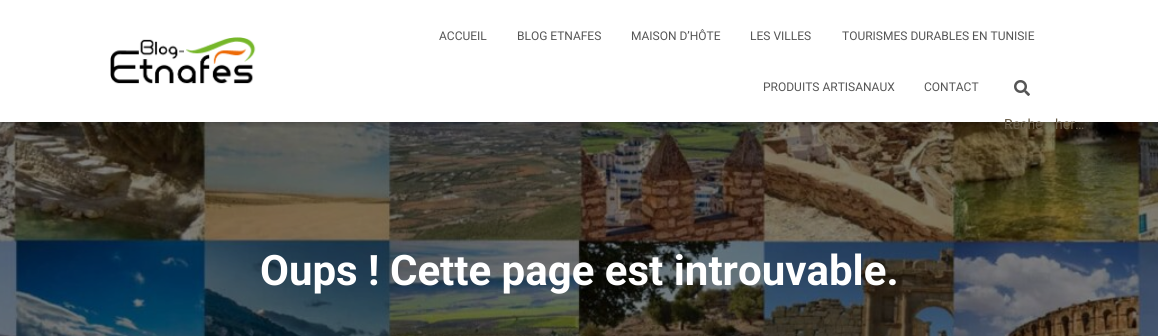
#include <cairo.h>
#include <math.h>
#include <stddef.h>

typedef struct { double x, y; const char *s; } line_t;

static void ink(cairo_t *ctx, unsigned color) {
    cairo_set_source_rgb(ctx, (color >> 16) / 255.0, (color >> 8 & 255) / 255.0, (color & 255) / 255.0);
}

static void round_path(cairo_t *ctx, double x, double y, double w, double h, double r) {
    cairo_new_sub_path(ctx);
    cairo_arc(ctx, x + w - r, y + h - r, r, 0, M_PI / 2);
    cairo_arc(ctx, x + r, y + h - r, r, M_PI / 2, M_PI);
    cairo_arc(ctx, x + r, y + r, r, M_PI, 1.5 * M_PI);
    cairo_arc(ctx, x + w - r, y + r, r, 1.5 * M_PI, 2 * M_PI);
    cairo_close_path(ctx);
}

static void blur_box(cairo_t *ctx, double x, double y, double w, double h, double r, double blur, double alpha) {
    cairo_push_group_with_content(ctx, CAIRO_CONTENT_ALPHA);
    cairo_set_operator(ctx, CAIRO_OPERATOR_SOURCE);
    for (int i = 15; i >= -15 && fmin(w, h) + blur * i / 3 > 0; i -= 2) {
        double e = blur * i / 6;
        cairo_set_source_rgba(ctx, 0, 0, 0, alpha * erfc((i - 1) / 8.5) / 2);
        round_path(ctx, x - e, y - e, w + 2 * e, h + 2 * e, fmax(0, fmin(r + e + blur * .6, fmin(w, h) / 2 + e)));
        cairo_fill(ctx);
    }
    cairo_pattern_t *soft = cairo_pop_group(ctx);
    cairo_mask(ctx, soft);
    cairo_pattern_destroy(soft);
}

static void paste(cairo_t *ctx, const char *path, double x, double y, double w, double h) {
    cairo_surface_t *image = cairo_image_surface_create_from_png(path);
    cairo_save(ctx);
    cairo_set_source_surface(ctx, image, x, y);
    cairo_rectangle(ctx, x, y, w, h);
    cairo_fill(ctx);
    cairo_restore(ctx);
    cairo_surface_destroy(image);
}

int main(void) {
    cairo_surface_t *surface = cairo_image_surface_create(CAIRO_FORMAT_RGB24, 1158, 336);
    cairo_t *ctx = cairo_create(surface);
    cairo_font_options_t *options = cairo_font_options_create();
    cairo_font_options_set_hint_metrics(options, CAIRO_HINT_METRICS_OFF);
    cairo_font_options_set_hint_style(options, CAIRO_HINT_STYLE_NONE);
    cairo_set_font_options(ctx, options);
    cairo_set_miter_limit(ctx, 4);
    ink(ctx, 0xFFFFFF);
    cairo_paint(ctx);
    paste(ctx, "media/3.png", 0, 122, 1158, 214);
    ink(ctx, 0x000000);
    blur_box(ctx, 2, 6, 1154, 118, 0, 2.5, 0.1);
    blur_box(ctx, 0, 1, 1158, 122, 0, 5, 0.12);
    blur_box(ctx, 6, 7, 1146, 110, 0, 5, 0.42);
    ink(ctx, 0xFFFFFF);
    cairo_rectangle(ctx, 0, 0, 1158, 122);
    cairo_fill(ctx);
    paste(ctx, "media/1.png", 110, 37, 146, 47);
    cairo_select_font_face(ctx, "Roboto", CAIRO_FONT_SLANT_NORMAL, CAIRO_FONT_WEIGHT_NORMAL);
    cairo_set_font_size(ctx, 12);
    ink(ctx, 0x555555);
    {
        static const line_t items[] = {
            {439, 40, "ACCUEIL"},
            {517, 40, "BLOG ETNAFES"},
            {631, 40, "MAISON D’HÔTE"},
            {750, 40, "LES VILLES"},
            {842, 40, "TOURISMES DURABLES EN TUNISIE"},
            {763, 91, "PRODUITS ARTISANAUX"},
            {924, 91, "CONTACT"},
        };
        for (size_t i = 0; i < sizeof items / sizeof *items; i++) {
            cairo_move_to(ctx, items[i].x, items[i].y);
            cairo_show_text(ctx, items[i].s);
        }
    }
    paste(ctx, "media/2.png", 1014, 80, 16, 16);
    cairo_set_font_size(ctx, 14);
    ink(ctx, 0x685D49);
    cairo_move_to(ctx, 1004, 129);
    cairo_show_text(ctx, "Reche");
    cairo_move_to(ctx, 1055, 129);
    cairo_show_text(ctx, "her…");
    cairo_select_font_face(ctx, "Roboto", CAIRO_FONT_SLANT_NORMAL, CAIRO_FONT_WEIGHT_BOLD);
    cairo_set_font_size(ctx, 42);
    ink(ctx, 0xFFFFFF);
    cairo_move_to(ctx, 260, 285);
    cairo_show_text(ctx, "Oups ! Cette page est introuvable.");
    cairo_surface_write_to_png(surface, "image.png");
    cairo_font_options_destroy(options);
    cairo_destroy(ctx);
    cairo_surface_destroy(surface);
    return 0;
}
